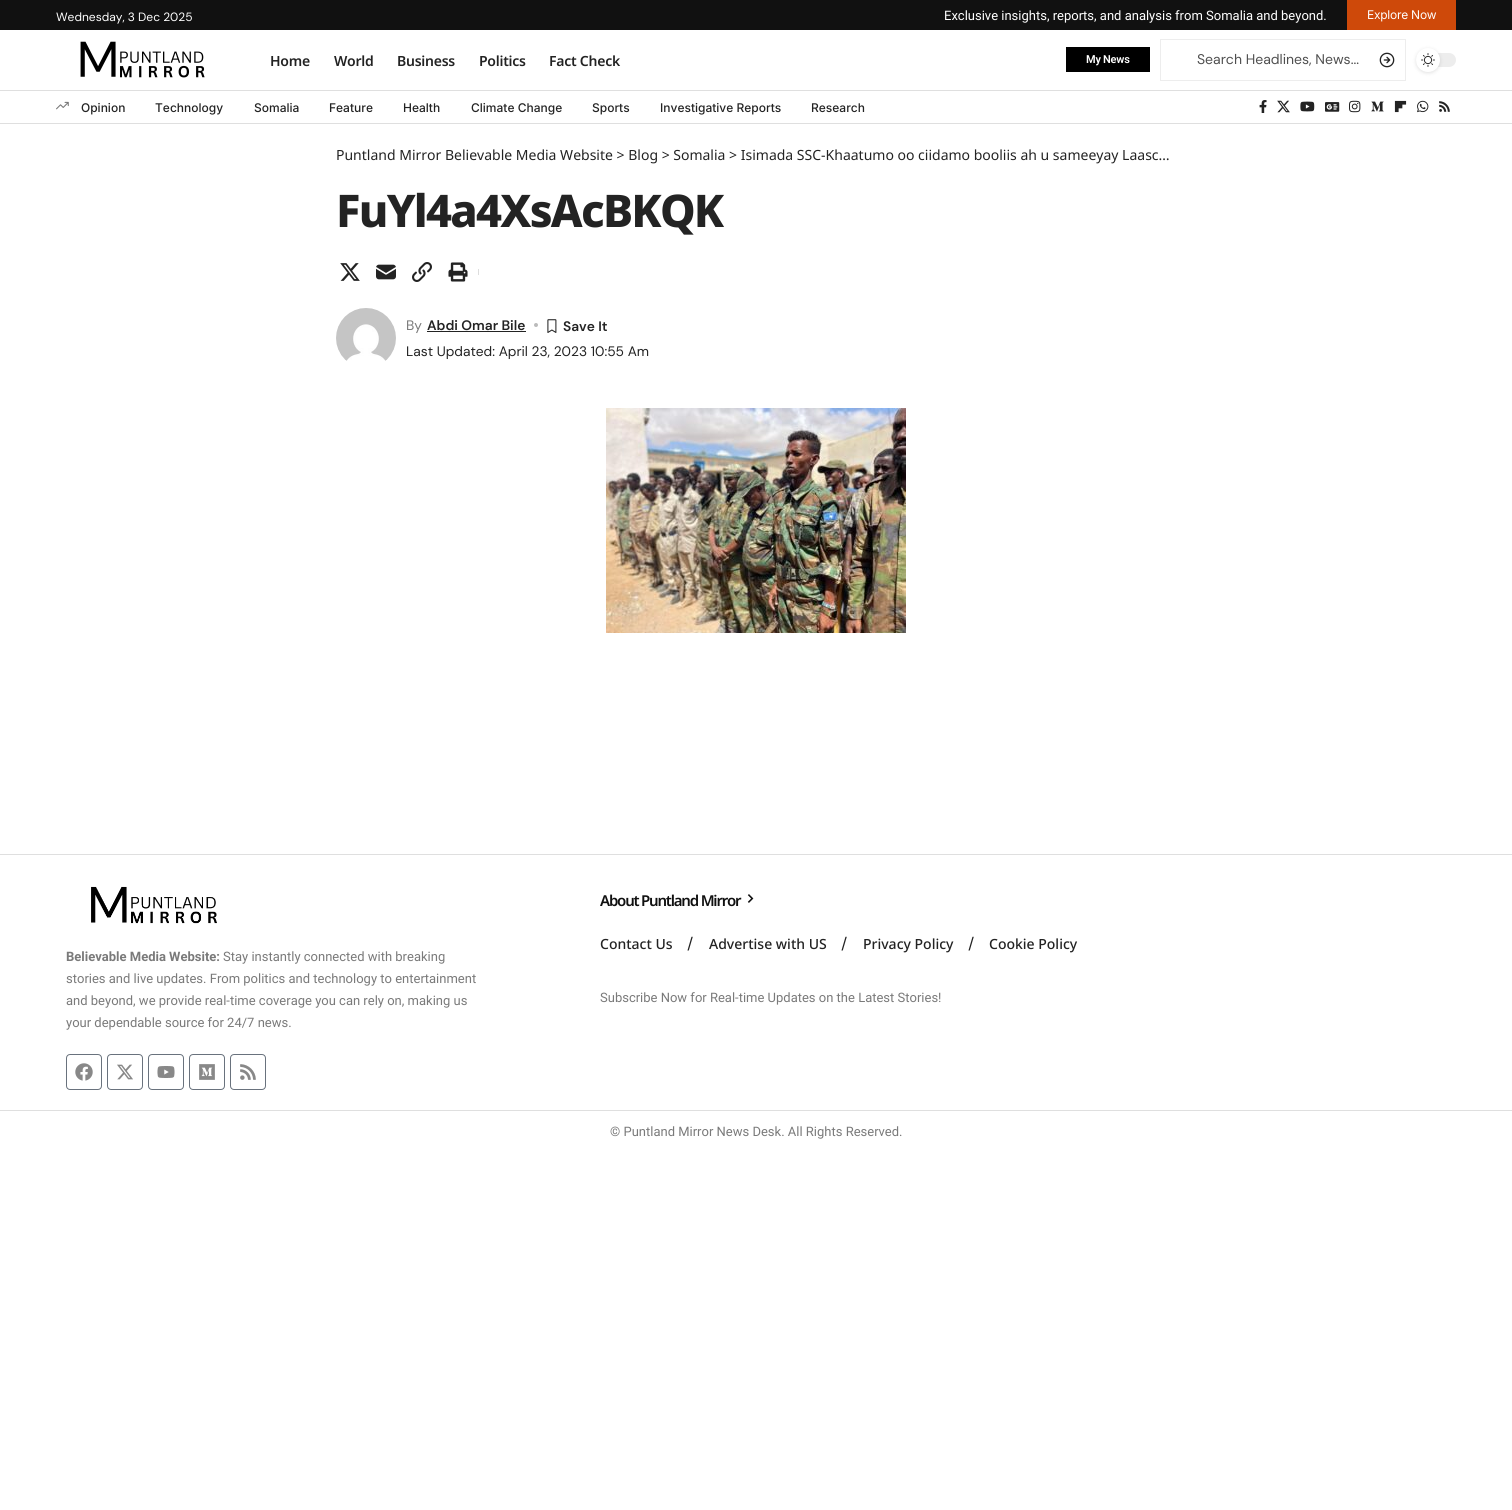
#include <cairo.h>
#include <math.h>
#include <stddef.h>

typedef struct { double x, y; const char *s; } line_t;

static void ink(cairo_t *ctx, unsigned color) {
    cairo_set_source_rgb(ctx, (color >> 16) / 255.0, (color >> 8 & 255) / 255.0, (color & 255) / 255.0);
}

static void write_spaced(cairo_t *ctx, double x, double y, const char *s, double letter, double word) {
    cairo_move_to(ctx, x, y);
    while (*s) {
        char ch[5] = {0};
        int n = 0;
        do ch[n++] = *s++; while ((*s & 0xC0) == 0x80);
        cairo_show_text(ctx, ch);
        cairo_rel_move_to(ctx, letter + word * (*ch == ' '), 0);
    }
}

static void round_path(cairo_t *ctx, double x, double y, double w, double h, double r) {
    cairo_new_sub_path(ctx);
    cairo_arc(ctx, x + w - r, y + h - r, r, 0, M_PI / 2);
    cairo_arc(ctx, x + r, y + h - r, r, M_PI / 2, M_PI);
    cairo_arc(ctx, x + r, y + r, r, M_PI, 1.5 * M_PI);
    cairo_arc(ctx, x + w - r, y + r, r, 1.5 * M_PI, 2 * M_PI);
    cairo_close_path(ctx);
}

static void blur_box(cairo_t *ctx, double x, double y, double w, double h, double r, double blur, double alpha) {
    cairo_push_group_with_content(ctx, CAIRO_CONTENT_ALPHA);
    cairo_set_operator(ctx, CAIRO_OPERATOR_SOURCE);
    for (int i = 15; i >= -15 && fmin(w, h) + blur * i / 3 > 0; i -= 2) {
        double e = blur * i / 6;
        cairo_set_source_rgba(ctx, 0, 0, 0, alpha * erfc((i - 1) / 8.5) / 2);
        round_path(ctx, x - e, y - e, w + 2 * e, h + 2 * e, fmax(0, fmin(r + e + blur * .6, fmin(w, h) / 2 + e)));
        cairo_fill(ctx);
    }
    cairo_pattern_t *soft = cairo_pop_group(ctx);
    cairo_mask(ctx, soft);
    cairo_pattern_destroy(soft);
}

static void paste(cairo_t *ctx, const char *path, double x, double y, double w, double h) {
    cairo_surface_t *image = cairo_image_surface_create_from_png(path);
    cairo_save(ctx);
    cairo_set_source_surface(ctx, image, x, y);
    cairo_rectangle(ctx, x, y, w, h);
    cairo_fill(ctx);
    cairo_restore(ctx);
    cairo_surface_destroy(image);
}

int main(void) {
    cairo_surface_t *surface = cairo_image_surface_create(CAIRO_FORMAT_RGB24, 1512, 1510);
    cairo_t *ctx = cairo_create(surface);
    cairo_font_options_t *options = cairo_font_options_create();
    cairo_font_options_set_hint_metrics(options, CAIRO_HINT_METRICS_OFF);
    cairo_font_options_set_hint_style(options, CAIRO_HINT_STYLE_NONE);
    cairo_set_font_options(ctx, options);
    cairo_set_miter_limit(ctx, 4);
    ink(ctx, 0xFFFFFF);
    cairo_paint(ctx);
    ink(ctx, 0x111111);
    cairo_rectangle(ctx, 0, 0, 1512, 30);
    cairo_fill(ctx);
    cairo_select_font_face(ctx, "DM Sans", CAIRO_FONT_SLANT_NORMAL, CAIRO_FONT_WEIGHT_NORMAL);
    cairo_set_font_size(ctx, 12);
    ink(ctx, 0xFFFFFF);
    cairo_move_to(ctx, 56, 21);
    cairo_show_text(ctx, "Wednesday, 3 Dec 2025");
    cairo_select_font_face(ctx, "Roboto", CAIRO_FONT_SLANT_NORMAL, CAIRO_FONT_WEIGHT_NORMAL);
    cairo_set_font_size(ctx, 13);
    cairo_move_to(ctx, 944, 20);
    cairo_show_text(ctx, "Exclusive insights, reports, and analysis from Somalia and beyond.");
    ink(ctx, 0xCE490A);
    cairo_rectangle(ctx, 1347, 0, 109, 30);
    cairo_fill(ctx);
    cairo_select_font_face(ctx, "Inter", CAIRO_FONT_SLANT_NORMAL, CAIRO_FONT_WEIGHT_NORMAL);
    cairo_set_font_size(ctx, 12);
    ink(ctx, 0xFFFFFF);
    write_spaced(ctx, 1367, 19, "Explore Now", -0.25, 0);
    paste(ctx, "media/1.png", 80, 41, 125, 37);
    cairo_select_font_face(ctx, "Noto Sans SemiBold", CAIRO_FONT_SLANT_NORMAL, CAIRO_FONT_WEIGHT_NORMAL);
    cairo_set_font_size(ctx, 14);
    ink(ctx, 0x232323);
    {
        static const line_t items[] = {
            {270, 66, "Home"},
            {334, 66, "World"},
            {397, 66, "Business"},
            {479, 66, "Politics"},
            {549, 66, "Fact Check"},
        };
        for (size_t i = 0; i < sizeof items / sizeof *items; i++) {
            write_spaced(ctx, items[i].x, items[i].y, items[i].s, -0.25, 0);
        }
    }
    ink(ctx, 0x000000);
    cairo_rectangle(ctx, 1066, 47, 84, 25);
    cairo_fill(ctx);
    cairo_select_font_face(ctx, "Roboto SemiBold", CAIRO_FONT_SLANT_NORMAL, CAIRO_FONT_WEIGHT_NORMAL);
    cairo_set_font_size(ctx, 11);
    ink(ctx, 0xFFFFFF);
    write_spaced(ctx, 1086, 63, "My News", -0.25, 0);
    cairo_rectangle(ctx, 1160.5, 39.5, 245, 41);
    ink(ctx, 0xEDEDED);
    cairo_set_line_width(ctx, 1);
    cairo_stroke(ctx);
    cairo_select_font_face(ctx, "DM Sans", CAIRO_FONT_SLANT_NORMAL, CAIRO_FONT_WEIGHT_NORMAL);
    cairo_set_font_size(ctx, 14);
    ink(ctx, 0x4F4F4F);
    cairo_move_to(ctx, 1197, 64);
    cairo_show_text(ctx, "Search Headlines, News...");
    paste(ctx, "media/2.png", 1379, 52, 16, 16);
    ink(ctx, 0xEDEDED);
    round_path(ctx, 1416, 53, 40, 14, 7);
    cairo_fill(ctx);
    ink(ctx, 0x000000);
    blur_box(ctx, 1416, 49, 24, 24, 12, 2, 0.12);
    ink(ctx, 0xFFFFFF);
    cairo_arc(ctx, 1428, 60, 12, 0, 2 * M_PI);
    cairo_fill(ctx);
    paste(ctx, "media/3.png", 1421, 53, 14, 14);
    ink(ctx, 0xDFDFDF);
    cairo_rectangle(ctx, 0, 90, 1512, 1);
    cairo_fill(ctx);
    cairo_rectangle(ctx, 0, 123, 1512, 1);
    cairo_fill(ctx);
    paste(ctx, "media/4.png", 56, 101, 13, 9);
    cairo_select_font_face(ctx, "Inter Medium", CAIRO_FONT_SLANT_NORMAL, CAIRO_FONT_WEIGHT_NORMAL);
    cairo_set_font_size(ctx, 12);
    ink(ctx, 0x232323);
    {
        static const line_t items[] = {
            {81, 112, "Opinion"},
            {155, 112, "Technology"},
            {254, 112, "Somalia"},
            {329, 112, "Feature"},
            {403, 112, "Health"},
            {471, 112, "Climate Change"},
            {592, 112, "Sports"},
            {660, 112, "Investigative Reports"},
            {811, 112, "Research"},
        };
        for (size_t i = 0; i < sizeof items / sizeof *items; i++) {
            cairo_move_to(ctx, items[i].x, items[i].y);
            cairo_show_text(ctx, items[i].s);
        }
    }
    paste(ctx, "media/5.png", 1259, 100, 8, 13);
    paste(ctx, "media/6.png", 1277, 100, 13, 13);
    paste(ctx, "media/7.png", 1300, 101, 15, 11);
    paste(ctx, "media/8.png", 1325, 102, 15, 10);
    paste(ctx, "media/9.png", 1349, 100, 12, 13);
    paste(ctx, "media/10.png", 1371, 101, 13, 11);
    paste(ctx, "media/11.png", 1394, 100, 13, 13);
    paste(ctx, "media/12.png", 1417, 100, 12, 13);
    paste(ctx, "media/13.png", 1439, 101, 11, 11);
    cairo_select_font_face(ctx, "Noto Sans", CAIRO_FONT_SLANT_NORMAL, CAIRO_FONT_WEIGHT_NORMAL);
    cairo_set_font_size(ctx, 14);
    cairo_move_to(ctx, 336, 160);
    cairo_show_text(ctx, "Puntland Mirror Believable Media Website > Blog > Somalia > Isimada SSC-Khaatumo oo ciidamo booliis ah u sameeyay Laasc…");
    cairo_select_font_face(ctx, "Noto Sans ExtraBold", CAIRO_FONT_SLANT_NORMAL, CAIRO_FONT_WEIGHT_NORMAL);
    cairo_set_font_size(ctx, 45);
    write_spaced(ctx, 336, 227, "FuYl4a4XsAcBKQK", -1.75, 0);
    paste(ctx, "media/14.png", 340, 263, 20, 18);
    paste(ctx, "media/15.png", 376, 264, 20, 16);
    paste(ctx, "media/16.png", 412, 262, 20, 20);
    paste(ctx, "media/17.png", 448, 262, 20, 20);
    ink(ctx, 0xDDDDDD);
    cairo_rectangle(ctx, 478, 269, 1, 6);
    cairo_fill(ctx);
    paste(ctx, "media/18.png", 336, 308, 60, 53);
    cairo_select_font_face(ctx, "DM Sans", CAIRO_FONT_SLANT_NORMAL, CAIRO_FONT_WEIGHT_NORMAL);
    cairo_set_font_size(ctx, 13.75);
    ink(ctx, 0x7A7A7A);
    cairo_move_to(ctx, 406, 330);
    cairo_show_text(ctx, "By");
    cairo_select_font_face(ctx, "DM Sans SemiBold", CAIRO_FONT_SLANT_NORMAL, CAIRO_FONT_WEIGHT_NORMAL);
    ink(ctx, 0x232323);
    cairo_move_to(ctx, 427, 330);
    cairo_show_text(ctx, "Abdi Omar Bile");
    cairo_rectangle(ctx, 427, 331, 99, 1);
    cairo_fill(ctx);
    ink(ctx, 0xBBBBBB);
    cairo_arc(ctx, 536, 325, 2, 0, 2 * M_PI);
    cairo_fill(ctx);
    paste(ctx, "media/19.png", 547, 319, 10, 14);
    ink(ctx, 0x232323);
    cairo_move_to(ctx, 563, 331);
    cairo_show_text(ctx, "Save It");
    cairo_select_font_face(ctx, "DM Sans", CAIRO_FONT_SLANT_NORMAL, CAIRO_FONT_WEIGHT_NORMAL);
    cairo_move_to(ctx, 406, 356);
    cairo_show_text(ctx, "Last Updated: April 23, 2023 10:55 Am");
    paste(ctx, "media/20.png", 606, 408, 300, 225);
    ink(ctx, 0xDFDFDF);
    cairo_rectangle(ctx, 0, 854, 1512, 1);
    cairo_fill(ctx);
    paste(ctx, "media/21.png", 91, 886, 126, 38);
    cairo_select_font_face(ctx, "Roboto", CAIRO_FONT_SLANT_NORMAL, CAIRO_FONT_WEIGHT_BOLD);
    cairo_set_font_size(ctx, 13);
    ink(ctx, 0x7A7A7A);
    cairo_move_to(ctx, 66, 961);
    cairo_show_text(ctx, "Believable Media Website:");
    cairo_select_font_face(ctx, "Roboto", CAIRO_FONT_SLANT_NORMAL, CAIRO_FONT_WEIGHT_NORMAL);
    {
        static const line_t items[] = {
            {223, 961, "Stay instantly connected with breaking"},
            {66, 983, "stories and live updates. From politics and technology to entertainment"},
            {66, 1005, "and beyond, we provide real-time coverage you can rely on, making us"},
            {66, 1027, "your dependable source for 24/7 news."},
        };
        for (size_t i = 0; i < sizeof items / sizeof *items; i++) {
            cairo_move_to(ctx, items[i].x, items[i].y);
            cairo_show_text(ctx, items[i].s);
        }
    }
    round_path(ctx, 66.5, 1054.5, 35, 35, 3.5);
    ink(ctx, 0x69727D);
    cairo_stroke(ctx);
    paste(ctx, "media/22.png", 75, 1063, 18, 18);
    round_path(ctx, 107.5, 1054.5, 35, 35, 3.5);
    cairo_stroke(ctx);
    paste(ctx, "media/23.png", 117, 1064, 16, 16);
    round_path(ctx, 148.5, 1054.5, 35, 35, 3.5);
    cairo_stroke(ctx);
    paste(ctx, "media/24.png", 157, 1066, 18, 12);
    round_path(ctx, 189.5, 1054.5, 35, 35, 3.5);
    cairo_stroke(ctx);
    paste(ctx, "media/25.png", 199, 1064, 16, 16);
    round_path(ctx, 230.5, 1054.5, 35, 35, 3.5);
    cairo_stroke(ctx);
    paste(ctx, "media/26.png", 240, 1064, 16, 16);
    cairo_select_font_face(ctx, "Noto Sans SemiBold", CAIRO_FONT_SLANT_NORMAL, CAIRO_FONT_WEIGHT_NORMAL);
    cairo_set_font_size(ctx, 15);
    ink(ctx, 0x101010);
    write_spaced(ctx, 600, 906, "About Puntland Mirror", -1.2, 0);
    paste(ctx, "media/27.png", 747, 894, 7, 9);
    cairo_select_font_face(ctx, "Noto Sans Medium", CAIRO_FONT_SLANT_NORMAL, CAIRO_FONT_WEIGHT_NORMAL);
    cairo_set_font_size(ctx, 14);
    ink(ctx, 0x232323);
    cairo_move_to(ctx, 600, 949);
    cairo_show_text(ctx, "Contact Us");
    cairo_select_font_face(ctx, "DM Sans", CAIRO_FONT_SLANT_NORMAL, CAIRO_FONT_WEIGHT_NORMAL);
    cairo_set_font_size(ctx, 16);
    cairo_move_to(ctx, 687, 949);
    cairo_show_text(ctx, "/");
    cairo_select_font_face(ctx, "Noto Sans Medium", CAIRO_FONT_SLANT_NORMAL, CAIRO_FONT_WEIGHT_NORMAL);
    cairo_set_font_size(ctx, 14);
    cairo_move_to(ctx, 709, 949);
    cairo_show_text(ctx, "Advertise with US");
    cairo_select_font_face(ctx, "DM Sans", CAIRO_FONT_SLANT_NORMAL, CAIRO_FONT_WEIGHT_NORMAL);
    cairo_set_font_size(ctx, 16);
    cairo_move_to(ctx, 841, 949);
    cairo_show_text(ctx, "/");
    cairo_select_font_face(ctx, "Noto Sans Medium", CAIRO_FONT_SLANT_NORMAL, CAIRO_FONT_WEIGHT_NORMAL);
    cairo_set_font_size(ctx, 14);
    cairo_move_to(ctx, 863, 949);
    cairo_show_text(ctx, "Privacy Policy");
    cairo_select_font_face(ctx, "DM Sans", CAIRO_FONT_SLANT_NORMAL, CAIRO_FONT_WEIGHT_NORMAL);
    cairo_set_font_size(ctx, 16);
    cairo_move_to(ctx, 968, 949);
    cairo_show_text(ctx, "/");
    cairo_select_font_face(ctx, "Noto Sans Medium", CAIRO_FONT_SLANT_NORMAL, CAIRO_FONT_WEIGHT_NORMAL);
    cairo_set_font_size(ctx, 14);
    cairo_move_to(ctx, 989, 949);
    cairo_show_text(ctx, "Cookie Policy");
    cairo_select_font_face(ctx, "Roboto", CAIRO_FONT_SLANT_NORMAL, CAIRO_FONT_WEIGHT_NORMAL);
    cairo_set_font_size(ctx, 13);
    ink(ctx, 0x7A7A7A);
    cairo_move_to(ctx, 600, 1002);
    cairo_show_text(ctx, "Subscribe Now for Real-time Updates on the Latest Stories!");
    ink(ctx, 0xDFDFDF);
    cairo_rectangle(ctx, 0, 1110, 1512, 1);
    cairo_fill(ctx);
    ink(ctx, 0x7A7A7A);
    cairo_move_to(ctx, 610, 1136);
    cairo_show_text(ctx, "© Puntland Mirror News Desk. All Rights Reserved.");
    cairo_surface_write_to_png(surface, "image.png");
    cairo_font_options_destroy(options);
    cairo_destroy(ctx);
    cairo_surface_destroy(surface);
    return 0;
}
